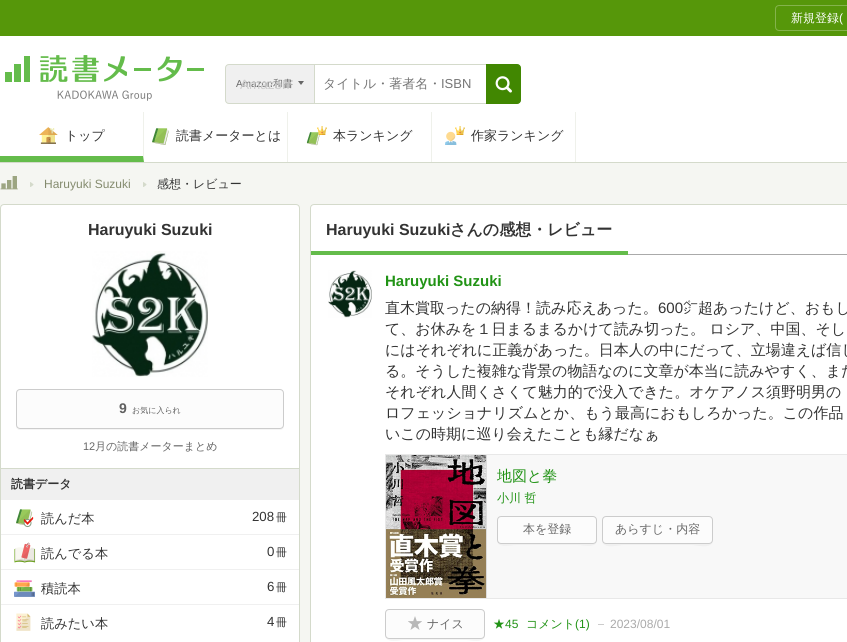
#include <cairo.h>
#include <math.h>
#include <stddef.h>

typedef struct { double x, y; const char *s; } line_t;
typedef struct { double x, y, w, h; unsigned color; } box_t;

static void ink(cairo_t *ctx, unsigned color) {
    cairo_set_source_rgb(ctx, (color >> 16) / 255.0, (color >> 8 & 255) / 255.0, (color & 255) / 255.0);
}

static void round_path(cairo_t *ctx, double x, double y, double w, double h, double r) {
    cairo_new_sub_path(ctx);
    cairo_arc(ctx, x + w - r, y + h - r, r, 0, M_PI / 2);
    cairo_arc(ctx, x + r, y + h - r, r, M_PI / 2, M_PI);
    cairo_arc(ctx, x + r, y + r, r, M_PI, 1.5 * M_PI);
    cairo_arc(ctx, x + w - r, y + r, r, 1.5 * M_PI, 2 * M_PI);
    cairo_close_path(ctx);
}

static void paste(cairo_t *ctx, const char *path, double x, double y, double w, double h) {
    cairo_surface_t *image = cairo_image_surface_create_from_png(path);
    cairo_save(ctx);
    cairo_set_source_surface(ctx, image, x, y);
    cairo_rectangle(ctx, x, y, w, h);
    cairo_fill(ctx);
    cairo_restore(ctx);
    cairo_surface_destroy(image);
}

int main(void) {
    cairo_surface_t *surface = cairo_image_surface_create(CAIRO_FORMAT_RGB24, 847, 642);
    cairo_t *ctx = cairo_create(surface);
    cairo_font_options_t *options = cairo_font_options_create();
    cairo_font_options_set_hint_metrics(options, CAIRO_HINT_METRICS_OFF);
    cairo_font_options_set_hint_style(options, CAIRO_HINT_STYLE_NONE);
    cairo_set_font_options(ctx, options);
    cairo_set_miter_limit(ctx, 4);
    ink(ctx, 0xF5F6F2);
    cairo_paint(ctx);
    {
        static const box_t items[] = {
            {0, 36, 847, 126, 0xFFFFFF},
            {0, 162, 847, 1, 0xD4DACB},
            {0, 0, 847, 36, 0x56970A},
        };
        for (size_t i = 0; i < sizeof items / sizeof *items; i++) {
            ink(ctx, items[i].color);
            cairo_rectangle(ctx, items[i].x, items[i].y, items[i].w, items[i].h);
            cairo_fill(ctx);
        }
    }
    round_path(ctx, 775.5, 5.5, 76, 25, 3.5);
    ink(ctx, 0x84B34C);
    cairo_set_line_width(ctx, 1);
    cairo_stroke(ctx);
    cairo_select_font_face(ctx, "WenQuanYi Zen Hei Medium", CAIRO_FONT_SLANT_NORMAL, CAIRO_FONT_WEIGHT_NORMAL);
    cairo_set_font_size(ctx, 12);
    ink(ctx, 0xFFFFFF);
    cairo_move_to(ctx, 791, 22);
    cairo_show_text(ctx, "新規登録");
    cairo_select_font_face(ctx, "Liberation Sans", CAIRO_FONT_SLANT_NORMAL, CAIRO_FONT_WEIGHT_NORMAL);
    cairo_move_to(ctx, 839, 22);
    cairo_show_text(ctx, "(");
    paste(ctx, "media/1.png", 5, 55, 199, 46);
    ink(ctx, 0xF0F0F0);
    cairo_new_path(ctx);
    cairo_move_to(ctx, 229, 64.5);
    cairo_line_to(ctx, 314.5, 64.5);
    cairo_line_to(ctx, 314.5, 103.5);
    cairo_line_to(ctx, 229, 103.5);
    cairo_curve_to(ctx, 227, 103.5, 225.5, 102, 225.5, 100);
    cairo_line_to(ctx, 225.5, 68);
    cairo_curve_to(ctx, 225.5, 66, 227, 64.5, 229, 64.5);
    cairo_close_path(ctx);
    cairo_fill_preserve(ctx);
    ink(ctx, 0xD4DACB);
    cairo_stroke(ctx);
    cairo_set_font_size(ctx, 10);
    ink(ctx, 0x666666);
    cairo_move_to(ctx, 236, 87);
    cairo_show_text(ctx, "Amazon");
    cairo_select_font_face(ctx, "WenQuanYi Zen Hei Medium", CAIRO_FONT_SLANT_NORMAL, CAIRO_FONT_WEIGHT_NORMAL);
    cairo_move_to(ctx, 273, 87);
    cairo_show_text(ctx, "和書");
    cairo_select_font_face(ctx, "Liberation Sans", CAIRO_FONT_SLANT_NORMAL, CAIRO_FONT_WEIGHT_NORMAL);
    cairo_set_font_size(ctx, 13.5);
    ink(ctx, 0xCDCDCD);
    cairo_move_to(ctx, 240, 89);
    cairo_show_text(ctx, "Amazon");
    paste(ctx, "media/2.png", 298, 81, 6, 4);
    ink(ctx, 0xD4DACB);
    cairo_rectangle(ctx, 315, 64, 171, 1);
    cairo_fill(ctx);
    cairo_rectangle(ctx, 315, 103, 171, 1);
    cairo_fill(ctx);
    cairo_select_font_face(ctx, "WenQuanYi Zen Hei Medium", CAIRO_FONT_SLANT_NORMAL, CAIRO_FONT_WEIGHT_NORMAL);
    cairo_set_font_size(ctx, 13);
    ink(ctx, 0x757575);
    cairo_move_to(ctx, 323, 88);
    cairo_show_text(ctx, "タイトル・著者名・");
    cairo_select_font_face(ctx, "Liberation Sans", CAIRO_FONT_SLANT_NORMAL, CAIRO_FONT_WEIGHT_NORMAL);
    cairo_move_to(ctx, 441, 88);
    cairo_show_text(ctx, "ISBN");
    ink(ctx, 0x418701);
    cairo_new_path(ctx);
    cairo_move_to(ctx, 486.5, 64.5);
    cairo_line_to(ctx, 517, 64.5);
    cairo_curve_to(ctx, 519, 64.5, 520.5, 66, 520.5, 68);
    cairo_line_to(ctx, 520.5, 100);
    cairo_curve_to(ctx, 520.5, 102, 519, 103.5, 517, 103.5);
    cairo_line_to(ctx, 486.5, 103.5);
    cairo_close_path(ctx);
    cairo_fill_preserve(ctx);
    cairo_stroke(ctx);
    paste(ctx, "media/3.png", 495, 76, 17, 17);
    ink(ctx, 0xEFF1EB);
    cairo_new_path(ctx);
    cairo_move_to(ctx, 144, 112);
    cairo_line_to(ctx, 144, 162);
    cairo_line_to(ctx, 143, 156);
    cairo_line_to(ctx, 143, 112);
    cairo_close_path(ctx);
    cairo_fill(ctx);
    ink(ctx, 0x64BC4B);
    cairo_new_path(ctx);
    cairo_move_to(ctx, 144, 162);
    cairo_line_to(ctx, 0, 162);
    cairo_line_to(ctx, 0, 156);
    cairo_line_to(ctx, 143, 156);
    cairo_close_path(ctx);
    cairo_fill(ctx);
    paste(ctx, "media/4.png", 39, 127, 19, 17);
    cairo_select_font_face(ctx, "WenQuanYi Zen Hei Medium", CAIRO_FONT_SLANT_NORMAL, CAIRO_FONT_WEIGHT_NORMAL);
    ink(ctx, 0x333333);
    cairo_move_to(ctx, 65, 140);
    cairo_show_text(ctx, "トップ");
    ink(ctx, 0xEFF1EB);
    cairo_rectangle(ctx, 287, 112, 1, 50);
    cairo_fill(ctx);
    paste(ctx, "media/5.png", 152, 128, 17, 17);
    ink(ctx, 0x333333);
    cairo_move_to(ctx, 176, 140);
    cairo_show_text(ctx, "読書メーターとは");
    ink(ctx, 0xEFF1EB);
    cairo_rectangle(ctx, 431, 112, 1, 50);
    cairo_fill(ctx);
    paste(ctx, "media/6.png", 306, 126, 21, 20);
    ink(ctx, 0x333333);
    cairo_move_to(ctx, 333, 140);
    cairo_show_text(ctx, "本ランキング");
    ink(ctx, 0xEFF1EB);
    cairo_rectangle(ctx, 575, 112, 1, 50);
    cairo_fill(ctx);
    paste(ctx, "media/7.png", 445, 126, 20, 19);
    ink(ctx, 0x333333);
    cairo_move_to(ctx, 471, 140);
    cairo_show_text(ctx, "作家ランキング");
    paste(ctx, "media/8.png", 0, 176, 18, 14);
    paste(ctx, "media/9.png", 30, 182, 4, 5);
    cairo_select_font_face(ctx, "Liberation Sans", CAIRO_FONT_SLANT_NORMAL, CAIRO_FONT_WEIGHT_NORMAL);
    cairo_set_font_size(ctx, 12);
    ink(ctx, 0x848B6E);
    cairo_move_to(ctx, 44, 188);
    cairo_show_text(ctx, "Haruyuki Suzuki");
    paste(ctx, "media/9.png", 143, 182, 4, 5);
    cairo_select_font_face(ctx, "WenQuanYi Zen Hei Medium", CAIRO_FONT_SLANT_NORMAL, CAIRO_FONT_WEIGHT_NORMAL);
    ink(ctx, 0x333333);
    cairo_move_to(ctx, 157, 188);
    cairo_show_text(ctx, "感想・レビュー");
    ink(ctx, 0xFFFFFF);
    round_path(ctx, 0.5, 204.5, 299, 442, 3.5);
    cairo_fill_preserve(ctx);
    ink(ctx, 0xD4DACB);
    cairo_stroke(ctx);
    cairo_select_font_face(ctx, "Liberation Sans", CAIRO_FONT_SLANT_NORMAL, CAIRO_FONT_WEIGHT_BOLD);
    cairo_set_font_size(ctx, 16);
    ink(ctx, 0x333333);
    cairo_move_to(ctx, 88, 235);
    cairo_show_text(ctx, "Haruyuki Suzuki");
    paste(ctx, "media/10.png", 92, 251, 116, 126);
    ink(ctx, 0xF5F5F5);
    cairo_new_path(ctx);
    cairo_move_to(ctx, 16, 425);
    cairo_curve_to(ctx, 16, 428, 17, 430, 20, 430);
    cairo_line_to(ctx, 280, 430);
    cairo_curve_to(ctx, 283, 430, 284, 428, 284, 425);
    cairo_curve_to(ctx, 284, 427, 282, 429, 280, 429);
    cairo_line_to(ctx, 18, 429);
    cairo_line_to(ctx, 17, 427);
    cairo_close_path(ctx);
    cairo_fill(ctx);
    ink(ctx, 0xFCFCFC);
    round_path(ctx, 16.5, 389.5, 267, 39, 3.5);
    cairo_fill_preserve(ctx);
    ink(ctx, 0xCCCCCC);
    cairo_stroke(ctx);
    cairo_set_font_size(ctx, 14);
    ink(ctx, 0x606060);
    cairo_move_to(ctx, 119, 413);
    cairo_show_text(ctx, "9");
    cairo_select_font_face(ctx, "WenQuanYi Zen Hei Medium", CAIRO_FONT_SLANT_NORMAL, CAIRO_FONT_WEIGHT_NORMAL);
    cairo_set_font_size(ctx, 8);
    cairo_move_to(ctx, 132, 413);
    cairo_show_text(ctx, "お気に入られ");
    cairo_select_font_face(ctx, "Liberation Sans", CAIRO_FONT_SLANT_NORMAL, CAIRO_FONT_WEIGHT_NORMAL);
    cairo_set_font_size(ctx, 11);
    ink(ctx, 0x666666);
    cairo_move_to(ctx, 83, 450);
    cairo_show_text(ctx, "12");
    cairo_select_font_face(ctx, "WenQuanYi Zen Hei Medium", CAIRO_FONT_SLANT_NORMAL, CAIRO_FONT_WEIGHT_NORMAL);
    cairo_move_to(ctx, 95, 450);
    cairo_show_text(ctx, "月の読書メーターまとめ");
    ink(ctx, 0xF0F0F0);
    cairo_rectangle(ctx, 1, 469, 298, 31);
    cairo_fill(ctx);
    ink(ctx, 0xD4DACB);
    cairo_rectangle(ctx, 1, 468, 298, 1);
    cairo_fill(ctx);
    cairo_select_font_face(ctx, "WenQuanYi Zen Hei", CAIRO_FONT_SLANT_NORMAL, CAIRO_FONT_WEIGHT_BOLD);
    cairo_set_font_size(ctx, 12);
    ink(ctx, 0x333333);
    cairo_move_to(ctx, 11, 488);
    cairo_show_text(ctx, "読書データ");
    ink(ctx, 0xF0F0F0);
    cairo_rectangle(ctx, 1, 534, 298, 1);
    cairo_fill(ctx);
    paste(ctx, "media/11.png", 16, 509, 18, 19);
    cairo_select_font_face(ctx, "WenQuanYi Zen Hei Medium", CAIRO_FONT_SLANT_NORMAL, CAIRO_FONT_WEIGHT_NORMAL);
    cairo_set_font_size(ctx, 13.25);
    ink(ctx, 0x333333);
    cairo_move_to(ctx, 41, 523);
    cairo_show_text(ctx, "読んだ本");
    cairo_select_font_face(ctx, "Liberation Sans", CAIRO_FONT_SLANT_NORMAL, CAIRO_FONT_WEIGHT_NORMAL);
    cairo_move_to(ctx, 252, 521);
    cairo_show_text(ctx, "208");
    cairo_select_font_face(ctx, "WenQuanYi Zen Hei Medium", CAIRO_FONT_SLANT_NORMAL, CAIRO_FONT_WEIGHT_NORMAL);
    cairo_set_font_size(ctx, 11);
    cairo_move_to(ctx, 276, 521);
    cairo_show_text(ctx, "冊");
    ink(ctx, 0xF0F0F0);
    cairo_rectangle(ctx, 1, 569, 298, 1);
    cairo_fill(ctx);
    paste(ctx, "media/12.png", 14, 542, 22, 21);
    cairo_set_font_size(ctx, 13.25);
    ink(ctx, 0x333333);
    cairo_move_to(ctx, 41, 558);
    cairo_show_text(ctx, "読んでる本");
    cairo_select_font_face(ctx, "Liberation Sans", CAIRO_FONT_SLANT_NORMAL, CAIRO_FONT_WEIGHT_NORMAL);
    cairo_move_to(ctx, 267, 556);
    cairo_show_text(ctx, "0");
    cairo_select_font_face(ctx, "WenQuanYi Zen Hei Medium", CAIRO_FONT_SLANT_NORMAL, CAIRO_FONT_WEIGHT_NORMAL);
    cairo_set_font_size(ctx, 11);
    cairo_move_to(ctx, 276, 556);
    cairo_show_text(ctx, "冊");
    ink(ctx, 0xF0F0F0);
    cairo_rectangle(ctx, 1, 604, 298, 1);
    cairo_fill(ctx);
    paste(ctx, "media/13.png", 14, 580, 21, 17);
    cairo_set_font_size(ctx, 13.25);
    ink(ctx, 0x333333);
    cairo_move_to(ctx, 41, 593);
    cairo_show_text(ctx, "積読本");
    cairo_select_font_face(ctx, "Liberation Sans", CAIRO_FONT_SLANT_NORMAL, CAIRO_FONT_WEIGHT_NORMAL);
    cairo_move_to(ctx, 267, 591);
    cairo_show_text(ctx, "6");
    cairo_select_font_face(ctx, "WenQuanYi Zen Hei Medium", CAIRO_FONT_SLANT_NORMAL, CAIRO_FONT_WEIGHT_NORMAL);
    cairo_set_font_size(ctx, 11);
    cairo_move_to(ctx, 276, 591);
    cairo_show_text(ctx, "冊");
    paste(ctx, "media/14.png", 16, 613, 15, 18);
    cairo_set_font_size(ctx, 13.25);
    cairo_move_to(ctx, 41, 628);
    cairo_show_text(ctx, "読みたい本");
    cairo_select_font_face(ctx, "Liberation Sans", CAIRO_FONT_SLANT_NORMAL, CAIRO_FONT_WEIGHT_NORMAL);
    cairo_move_to(ctx, 267, 626);
    cairo_show_text(ctx, "4");
    cairo_select_font_face(ctx, "WenQuanYi Zen Hei Medium", CAIRO_FONT_SLANT_NORMAL, CAIRO_FONT_WEIGHT_NORMAL);
    cairo_set_font_size(ctx, 11);
    cairo_move_to(ctx, 276, 626);
    cairo_show_text(ctx, "冊");
    ink(ctx, 0xFFFFFF);
    round_path(ctx, 310.5, 204.5, 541, 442, 3.5);
    cairo_fill_preserve(ctx);
    ink(ctx, 0xD4DACB);
    cairo_stroke(ctx);
    ink(ctx, 0xAAAAAA);
    cairo_rectangle(ctx, 628, 254, 219, 1);
    cairo_fill(ctx);
    ink(ctx, 0x64BC4B);
    cairo_rectangle(ctx, 311, 251, 317, 4);
    cairo_fill(ctx);
    cairo_select_font_face(ctx, "Liberation Sans", CAIRO_FONT_SLANT_NORMAL, CAIRO_FONT_WEIGHT_BOLD);
    cairo_set_font_size(ctx, 16);
    ink(ctx, 0x333333);
    cairo_move_to(ctx, 326, 235);
    cairo_show_text(ctx, "Haruyuki Suzuki");
    cairo_select_font_face(ctx, "WenQuanYi Zen Hei", CAIRO_FONT_SLANT_NORMAL, CAIRO_FONT_WEIGHT_BOLD);
    cairo_move_to(ctx, 450, 235);
    cairo_show_text(ctx, "さんの感想・レビュー");
    paste(ctx, "media/15.png", 328, 270, 44, 48);
    cairo_select_font_face(ctx, "Liberation Sans", CAIRO_FONT_SLANT_NORMAL, CAIRO_FONT_WEIGHT_BOLD);
    cairo_set_font_size(ctx, 15);
    ink(ctx, 0x219315);
    cairo_move_to(ctx, 385, 286);
    cairo_show_text(ctx, "Haruyuki Suzuki");
    cairo_select_font_face(ctx, "WenQuanYi Zen Hei Medium", CAIRO_FONT_SLANT_NORMAL, CAIRO_FONT_WEIGHT_NORMAL);
    ink(ctx, 0x333333);
    cairo_move_to(ctx, 385, 313);
    cairo_show_text(ctx, "直木賞取ったの納得！読み応えあった。");
    cairo_select_font_face(ctx, "Liberation Sans", CAIRO_FONT_SLANT_NORMAL, CAIRO_FONT_WEIGHT_NORMAL);
    cairo_move_to(ctx, 658, 313);
    cairo_show_text(ctx, "600");
    cairo_select_font_face(ctx, "IPAPGothic", CAIRO_FONT_SLANT_NORMAL, CAIRO_FONT_WEIGHT_NORMAL);
    cairo_move_to(ctx, 683, 313);
    cairo_show_text(ctx, "㌻");
    cairo_select_font_face(ctx, "WenQuanYi Zen Hei Medium", CAIRO_FONT_SLANT_NORMAL, CAIRO_FONT_WEIGHT_NORMAL);
    {
        static const line_t items[] = {
            {698, 313, "超あったけど、おもし"},
            {385, 334, "て、お休みを１日まるまるかけて読み切った。 ロシア、中国、そし"},
            {385, 355, "にはそれぞれに正義があった。日本人の中にだって、立場違えば信じ"},
            {385, 376, "る。そうした複雑な背景の物語なのに文章が本当に読みやすく、また"},
            {385, 397, "それぞれ人間くさくて魅力的で没入できた。オケアノス須野明男の"},
            {385, 418, "ロフェッショナリズムとか、もう最高におもしろかった。この作品"},
            {385, 439, "いこの時期に巡り会えたことも縁だなぁ"},
        };
        for (size_t i = 0; i < sizeof items / sizeof *items; i++) {
            cairo_move_to(ctx, items[i].x, items[i].y);
            cairo_show_text(ctx, items[i].s);
        }
    }
    ink(ctx, 0xF8F8F8);
    cairo_rectangle(ctx, 487, 455, 360, 143);
    cairo_fill(ctx);
    cairo_rectangle(ctx, 385.5, 454.5, 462, 144);
    ink(ctx, 0xE8E8E8);
    cairo_stroke(ctx);
    ink(ctx, 0xDCDCDC);
    cairo_rectangle(ctx, 486, 455, 1, 143);
    cairo_fill(ctx);
    paste(ctx, "media/16.png", 386, 455, 100, 143);
    ink(ctx, 0x219315);
    cairo_move_to(ctx, 497, 481);
    cairo_show_text(ctx, "地図と拳");
    cairo_set_font_size(ctx, 12);
    cairo_move_to(ctx, 497, 502);
    cairo_show_text(ctx, "小川 哲");
    ink(ctx, 0xF0F0F0);
    cairo_new_path(ctx);
    cairo_move_to(ctx, 497, 540);
    cairo_curve_to(ctx, 497, 549, 512, 545, 516, 545);
    cairo_line_to(ctx, 578, 545);
    cairo_curve_to(ctx, 582, 545, 597, 549, 597, 540);
    cairo_curve_to(ctx, 597, 542, 595, 544, 593, 544);
    cairo_line_to(ctx, 501, 544);
    cairo_curve_to(ctx, 499, 544, 497, 542, 497, 540);
    cairo_close_path(ctx);
    cairo_fill(ctx);
    ink(ctx, 0xFCFCFC);
    round_path(ctx, 497.5, 516.5, 99, 27, 3.5);
    cairo_fill_preserve(ctx);
    ink(ctx, 0xCCCCCC);
    cairo_stroke(ctx);
    ink(ctx, 0x666666);
    cairo_move_to(ctx, 523, 533);
    cairo_show_text(ctx, "本を登録");
    ink(ctx, 0xF0F0F0);
    cairo_new_path(ctx);
    cairo_move_to(ctx, 602, 540);
    cairo_curve_to(ctx, 602, 550, 620, 545, 623, 545);
    cairo_line_to(ctx, 692, 545);
    cairo_curve_to(ctx, 695, 545, 713, 550, 713, 540);
    cairo_curve_to(ctx, 713, 542, 711, 544, 709, 544);
    cairo_line_to(ctx, 606, 544);
    cairo_curve_to(ctx, 604, 544, 602, 542, 602, 540);
    cairo_close_path(ctx);
    cairo_fill(ctx);
    ink(ctx, 0xFCFCFC);
    round_path(ctx, 602.5, 516.5, 110, 27, 3.5);
    cairo_fill_preserve(ctx);
    ink(ctx, 0xCCCCCC);
    cairo_stroke(ctx);
    ink(ctx, 0x666666);
    cairo_move_to(ctx, 615, 533);
    cairo_show_text(ctx, "あらすじ・内容");
    ink(ctx, 0xF5F5F5);
    cairo_new_path(ctx);
    cairo_move_to(ctx, 385, 635);
    cairo_curve_to(ctx, 385, 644, 400, 640, 404, 640);
    cairo_line_to(ctx, 466, 640);
    cairo_curve_to(ctx, 470, 640, 485, 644, 485, 635);
    cairo_curve_to(ctx, 485, 637, 483, 639, 481, 639);
    cairo_line_to(ctx, 389, 639);
    cairo_curve_to(ctx, 387, 639, 385, 637, 385, 635);
    cairo_close_path(ctx);
    cairo_fill(ctx);
    ink(ctx, 0xFCFCFC);
    round_path(ctx, 385.5, 609.5, 99, 29, 3.5);
    cairo_fill_preserve(ctx);
    ink(ctx, 0xCCCCCC);
    cairo_stroke(ctx);
    paste(ctx, "media/17.png", 408, 616, 14, 14);
    ink(ctx, 0x666666);
    cairo_move_to(ctx, 427, 628);
    cairo_show_text(ctx, "ナイス");
    ink(ctx, 0x219315);
    cairo_move_to(ctx, 493, 628);
    cairo_show_text(ctx, "★");
    cairo_select_font_face(ctx, "Liberation Sans", CAIRO_FONT_SLANT_NORMAL, CAIRO_FONT_WEIGHT_NORMAL);
    cairo_move_to(ctx, 505, 628);
    cairo_show_text(ctx, "45");
    cairo_select_font_face(ctx, "WenQuanYi Zen Hei Medium", CAIRO_FONT_SLANT_NORMAL, CAIRO_FONT_WEIGHT_NORMAL);
    cairo_move_to(ctx, 526, 628);
    cairo_show_text(ctx, "コメント");
    cairo_select_font_face(ctx, "Liberation Sans", CAIRO_FONT_SLANT_NORMAL, CAIRO_FONT_WEIGHT_NORMAL);
    cairo_move_to(ctx, 575, 628);
    cairo_show_text(ctx, "(1)");
    ink(ctx, 0xCCCCCC);
    cairo_rectangle(ctx, 598, 624, 6, 1);
    cairo_fill(ctx);
    ink(ctx, 0xAAAAAA);
    cairo_move_to(ctx, 610, 628);
    cairo_show_text(ctx, "2023/08/01");
    cairo_surface_write_to_png(surface, "image.png");
    cairo_font_options_destroy(options);
    cairo_destroy(ctx);
    cairo_surface_destroy(surface);
    return 0;
}
